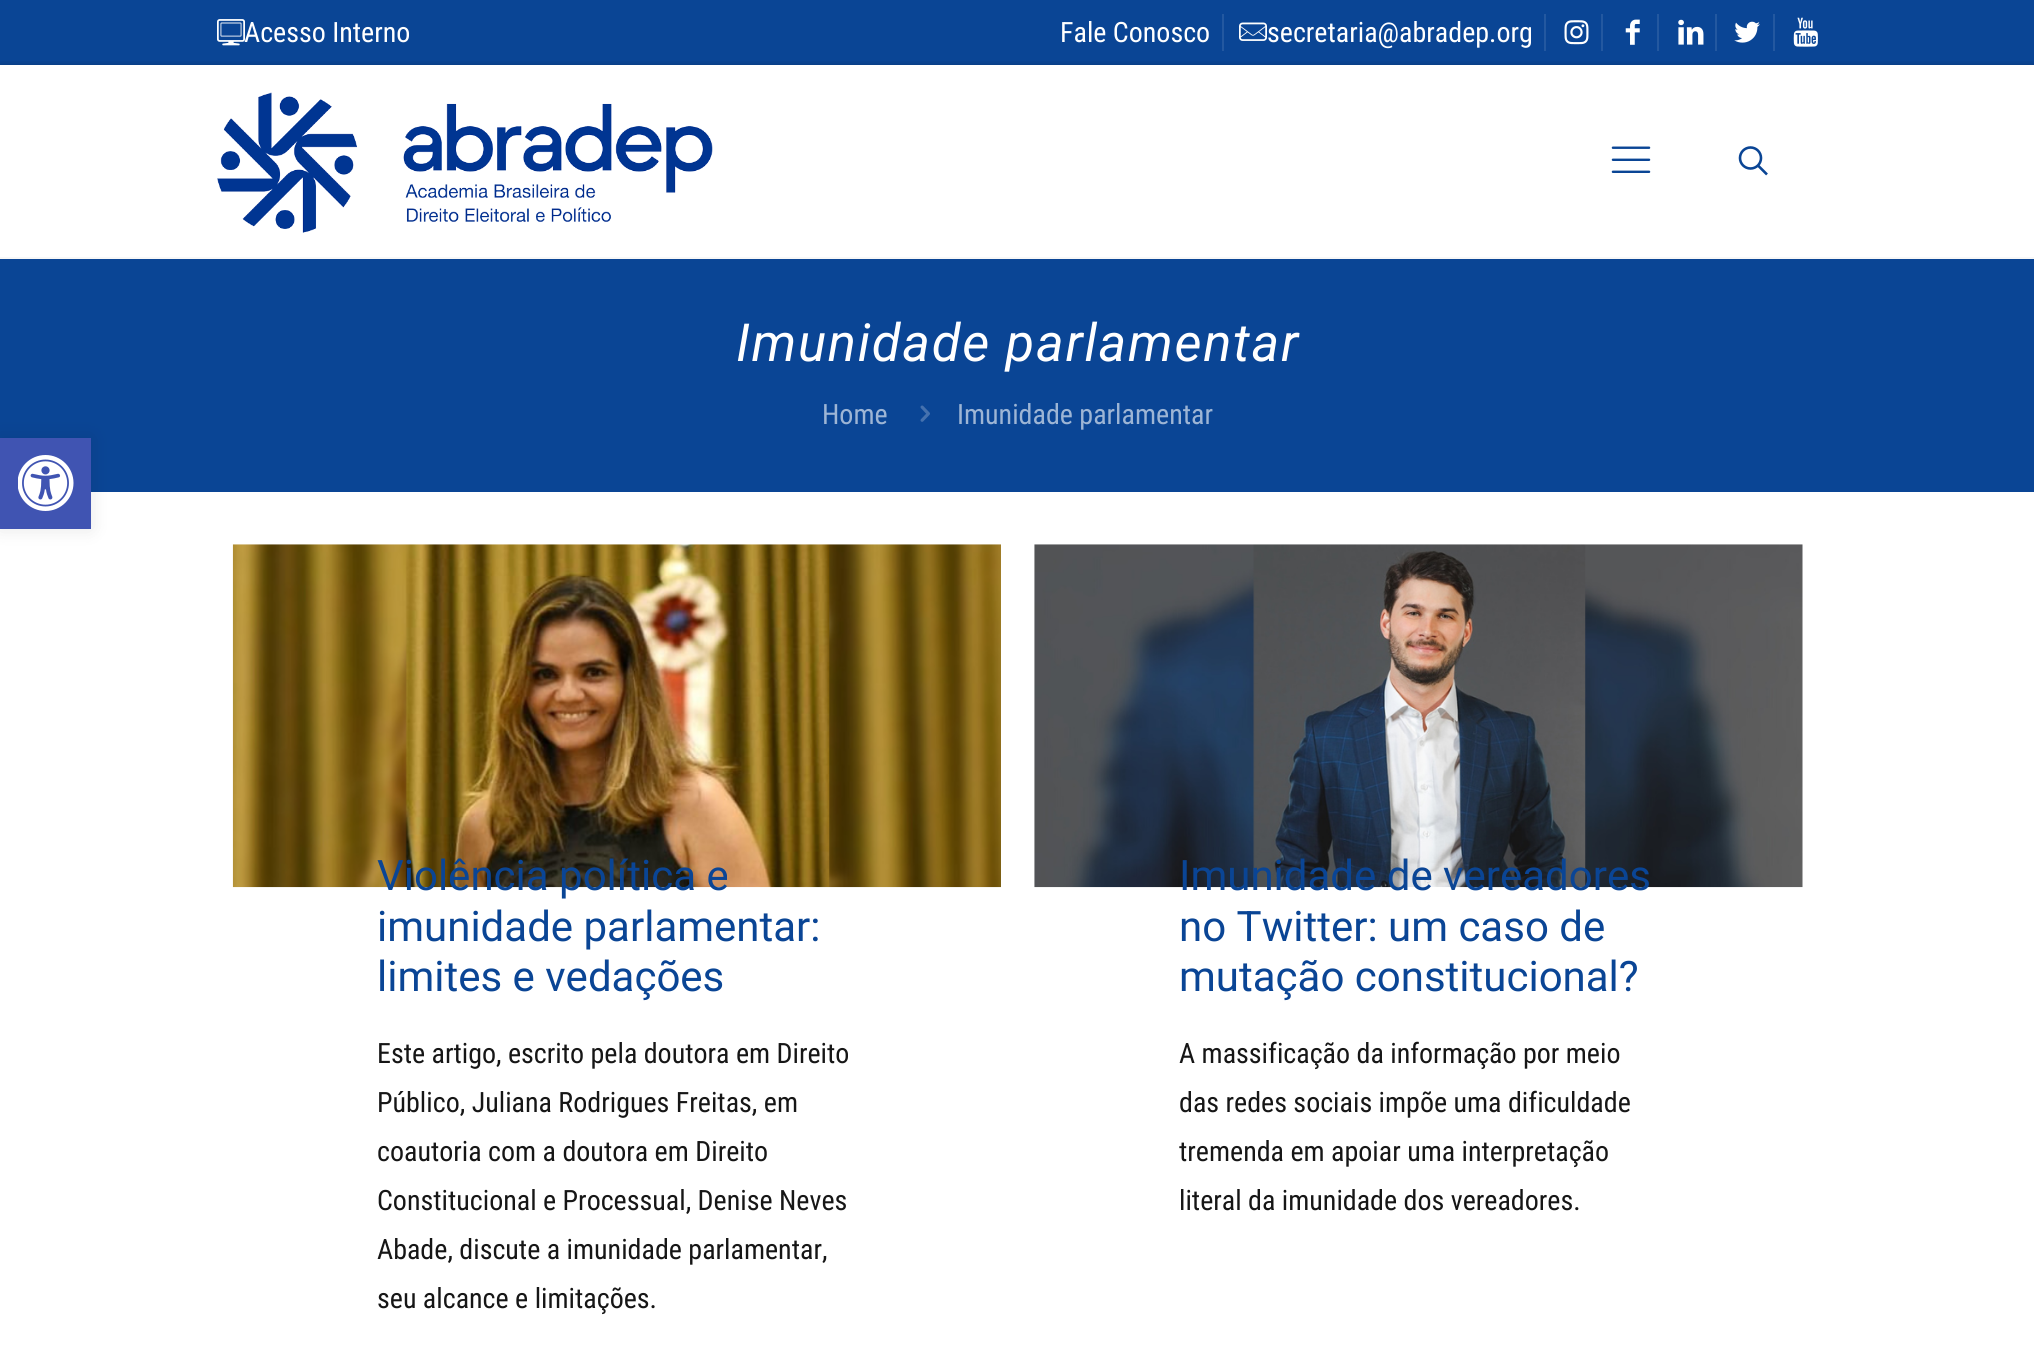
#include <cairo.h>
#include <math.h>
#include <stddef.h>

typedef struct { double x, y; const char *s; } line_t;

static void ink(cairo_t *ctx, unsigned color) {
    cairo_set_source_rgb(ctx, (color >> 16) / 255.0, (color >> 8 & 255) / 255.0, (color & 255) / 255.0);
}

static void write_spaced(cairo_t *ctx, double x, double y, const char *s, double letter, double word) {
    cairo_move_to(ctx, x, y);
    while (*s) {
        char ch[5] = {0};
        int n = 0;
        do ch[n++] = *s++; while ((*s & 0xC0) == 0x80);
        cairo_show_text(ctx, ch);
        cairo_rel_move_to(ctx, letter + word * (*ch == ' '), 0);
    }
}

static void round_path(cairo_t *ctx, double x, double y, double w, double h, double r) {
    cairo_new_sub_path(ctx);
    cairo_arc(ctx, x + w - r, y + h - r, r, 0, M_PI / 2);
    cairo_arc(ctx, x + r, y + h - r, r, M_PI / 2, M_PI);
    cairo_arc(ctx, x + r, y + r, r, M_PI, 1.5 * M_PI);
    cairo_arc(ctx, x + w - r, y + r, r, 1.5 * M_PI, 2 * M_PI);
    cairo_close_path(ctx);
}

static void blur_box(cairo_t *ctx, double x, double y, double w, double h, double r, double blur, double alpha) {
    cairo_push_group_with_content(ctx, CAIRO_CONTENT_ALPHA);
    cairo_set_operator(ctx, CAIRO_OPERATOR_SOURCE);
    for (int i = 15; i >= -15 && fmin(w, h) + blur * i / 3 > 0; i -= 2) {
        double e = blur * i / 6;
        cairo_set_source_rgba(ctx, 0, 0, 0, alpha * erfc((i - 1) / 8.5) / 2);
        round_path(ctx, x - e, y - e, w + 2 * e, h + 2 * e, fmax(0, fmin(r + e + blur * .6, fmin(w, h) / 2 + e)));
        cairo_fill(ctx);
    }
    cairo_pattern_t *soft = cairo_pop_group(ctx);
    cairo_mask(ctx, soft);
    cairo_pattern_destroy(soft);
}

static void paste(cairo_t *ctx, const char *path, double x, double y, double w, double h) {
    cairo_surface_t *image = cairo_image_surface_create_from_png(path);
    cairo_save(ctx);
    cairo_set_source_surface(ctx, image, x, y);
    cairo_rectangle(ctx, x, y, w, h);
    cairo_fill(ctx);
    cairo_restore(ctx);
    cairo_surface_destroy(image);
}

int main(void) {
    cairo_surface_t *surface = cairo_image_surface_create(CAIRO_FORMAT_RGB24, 2034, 1370);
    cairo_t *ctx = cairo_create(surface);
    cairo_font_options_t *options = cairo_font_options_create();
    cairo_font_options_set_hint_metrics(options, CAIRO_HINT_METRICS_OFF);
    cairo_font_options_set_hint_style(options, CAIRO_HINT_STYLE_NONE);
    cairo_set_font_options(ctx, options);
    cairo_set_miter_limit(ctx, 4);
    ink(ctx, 0xFFFFFF);
    cairo_paint(ctx);
    ink(ctx, 0x0A4595);
    cairo_rectangle(ctx, 0, 0, 2034, 65);
    cairo_fill(ctx);
    cairo_save(ctx);
    cairo_rectangle(ctx, 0, 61, 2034, 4);
    cairo_clip(ctx);
    ink(ctx, 0x000000);
    blur_box(ctx, 0, 68, 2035, 195, 0, 4.5, 0.4);
    cairo_restore(ctx);
    cairo_rectangle(ctx, 0, 259, 2034, 233);
    cairo_fill(ctx);
    ink(ctx, 0x000000);
    blur_box(ctx, 0, 438, 91, 91, 0, 9, 0.1);
    ink(ctx, 0x4054B2);
    cairo_rectangle(ctx, 0, 438, 91, 91);
    cairo_fill(ctx);
    paste(ctx, "media/1.png", 18, 455, 56, 56);
    paste(ctx, "media/2.png", 217, 19, 28, 27);
    cairo_select_font_face(ctx, "Roboto Condensed", CAIRO_FONT_SLANT_NORMAL, CAIRO_FONT_WEIGHT_NORMAL);
    cairo_set_font_size(ctx, 28);
    ink(ctx, 0xFFFFFF);
    cairo_move_to(ctx, 244, 42);
    cairo_show_text(ctx, "Acesso Interno");
    ink(ctx, 0x2358A0);
    cairo_rectangle(ctx, 1222, 14, 2, 37);
    cairo_fill(ctx);
    ink(ctx, 0xFFFFFF);
    cairo_move_to(ctx, 1060, 42);
    cairo_show_text(ctx, "Fale Conosco");
    ink(ctx, 0x2358A0);
    cairo_rectangle(ctx, 1544, 14, 2, 37);
    cairo_fill(ctx);
    paste(ctx, "media/3.png", 1239, 22, 28, 19);
    ink(ctx, 0xFFFFFF);
    cairo_move_to(ctx, 1267, 42);
    cairo_show_text(ctx, "secretaria@abradep.org");
    ink(ctx, 0x2358A0);
    cairo_rectangle(ctx, 1601, 14, 2, 37);
    cairo_fill(ctx);
    paste(ctx, "media/4.png", 1564, 20, 25, 25);
    cairo_rectangle(ctx, 1657, 14, 2, 37);
    cairo_fill(ctx);
    paste(ctx, "media/5.png", 1625, 19, 15, 26);
    cairo_rectangle(ctx, 1715, 14, 2, 37);
    cairo_fill(ctx);
    paste(ctx, "media/6.png", 1678, 19, 26, 26);
    cairo_rectangle(ctx, 1773, 14, 2, 37);
    cairo_fill(ctx);
    paste(ctx, "media/7.png", 1734, 21, 26, 22);
    paste(ctx, "media/8.png", 1793, 17, 25, 30);
    ink(ctx, 0xF7F7F7);
    cairo_rectangle(ctx, 0, 257, 2034, 2);
    cairo_fill(ctx);
    paste(ctx, "media/9.png", 217, 92, 496, 141);
    paste(ctx, "media/10.png", 1611, 146, 40, 27);
    cairo_arc(ctx, 1750.5, 158, 10.5, 0, 2 * M_PI);
    ink(ctx, 0x0A4595);
    cairo_set_line_width(ctx, 2.6);
    cairo_stroke(ctx);
    cairo_new_path(ctx);
    cairo_move_to(ctx, 1758, 165.5);
    cairo_line_to(ctx, 1767, 174.5);
    cairo_stroke(ctx);
    cairo_select_font_face(ctx, "Roboto", CAIRO_FONT_SLANT_ITALIC, CAIRO_FONT_WEIGHT_NORMAL);
    cairo_set_font_size(ctx, 52.5);
    ink(ctx, 0xFFFFFF);
    write_spaced(ctx, 736, 361, "Imunidade parlamentar", 1.75, 0);
    cairo_select_font_face(ctx, "Roboto Condensed", CAIRO_FONT_SLANT_NORMAL, CAIRO_FONT_WEIGHT_NORMAL);
    cairo_set_font_size(ctx, 28);
    ink(ctx, 0x9DB5D5);
    cairo_move_to(ctx, 822, 424);
    cairo_show_text(ctx, "Home");
    paste(ctx, "media/11.png", 920, 405, 10, 17);
    cairo_move_to(ctx, 957, 424);
    cairo_show_text(ctx, "Imunidade parlamentar");
    paste(ctx, "media/12.png", 232, 544, 769, 344);
    cairo_select_font_face(ctx, "Roboto", CAIRO_FONT_SLANT_NORMAL, CAIRO_FONT_WEIGHT_NORMAL);
    cairo_set_font_size(ctx, 42);
    ink(ctx, 0x0A4595);
    {
        static const line_t items[] = {
            {377, 890, "Violência política e"},
            {377, 941, "imunidade parlamentar:"},
            {377, 991, "limites e vedações"},
        };
        for (size_t i = 0; i < sizeof items / sizeof *items; i++) {
            cairo_move_to(ctx, items[i].x, items[i].y);
            cairo_show_text(ctx, items[i].s);
        }
    }
    cairo_select_font_face(ctx, "Roboto Condensed", CAIRO_FONT_SLANT_NORMAL, CAIRO_FONT_WEIGHT_NORMAL);
    cairo_set_font_size(ctx, 28);
    ink(ctx, 0x161616);
    {
        static const line_t items[] = {
            {377, 1063, "Este artigo, escrito pela doutora em Direito"},
            {377, 1112, "Público, Juliana Rodrigues Freitas, em"},
            {377, 1161, "coautoria com a doutora em Direito"},
            {377, 1210, "Constitucional e Processual, Denise Neves"},
            {377, 1259, "Abade, discute a imunidade parlamentar,"},
            {377, 1308, "seu alcance e limitações."},
        };
        for (size_t i = 0; i < sizeof items / sizeof *items; i++) {
            cairo_move_to(ctx, items[i].x, items[i].y);
            cairo_show_text(ctx, items[i].s);
        }
    }
    paste(ctx, "media/13.png", 1034, 544, 769, 344);
    cairo_select_font_face(ctx, "Roboto", CAIRO_FONT_SLANT_NORMAL, CAIRO_FONT_WEIGHT_NORMAL);
    cairo_set_font_size(ctx, 42);
    ink(ctx, 0x0A4595);
    {
        static const line_t items[] = {
            {1179, 890, "Imunidade de vereadores"},
            {1179, 941, "no Twitter: um caso de"},
            {1179, 991, "mutação constitucional?"},
        };
        for (size_t i = 0; i < sizeof items / sizeof *items; i++) {
            cairo_move_to(ctx, items[i].x, items[i].y);
            cairo_show_text(ctx, items[i].s);
        }
    }
    cairo_select_font_face(ctx, "Roboto Condensed", CAIRO_FONT_SLANT_NORMAL, CAIRO_FONT_WEIGHT_NORMAL);
    cairo_set_font_size(ctx, 28);
    ink(ctx, 0x161616);
    {
        static const line_t items[] = {
            {1179, 1063, "A massificação da informação por meio"},
            {1179, 1112, "das redes sociais impõe uma dificuldade"},
            {1179, 1161, "tremenda em apoiar uma interpretação"},
            {1179, 1210, "literal da imunidade dos vereadores."},
        };
        for (size_t i = 0; i < sizeof items / sizeof *items; i++) {
            cairo_move_to(ctx, items[i].x, items[i].y);
            cairo_show_text(ctx, items[i].s);
        }
    }
    cairo_surface_write_to_png(surface, "image.png");
    cairo_font_options_destroy(options);
    cairo_destroy(ctx);
    cairo_surface_destroy(surface);
    return 0;
}
